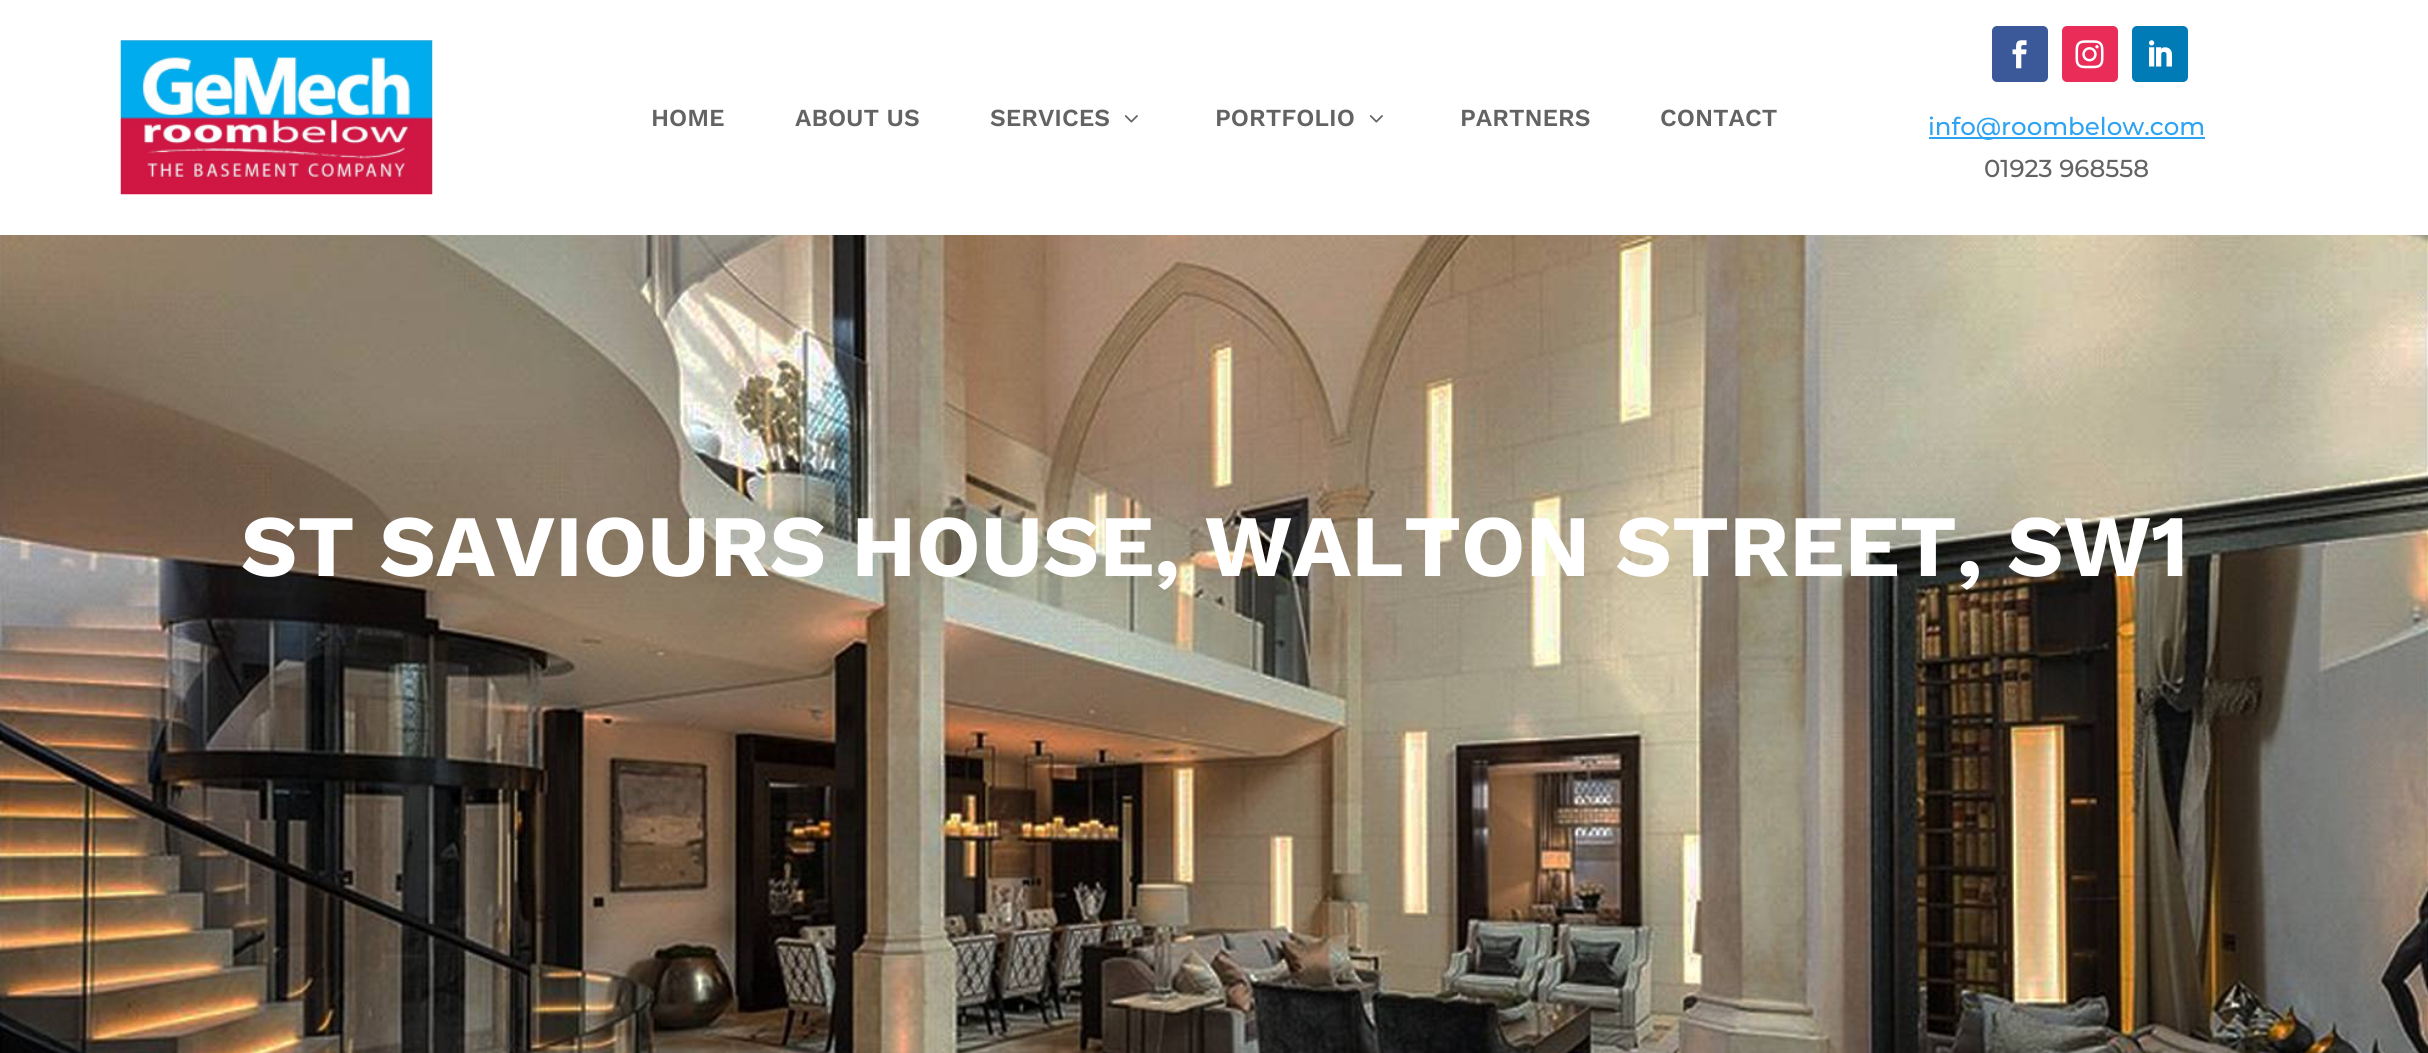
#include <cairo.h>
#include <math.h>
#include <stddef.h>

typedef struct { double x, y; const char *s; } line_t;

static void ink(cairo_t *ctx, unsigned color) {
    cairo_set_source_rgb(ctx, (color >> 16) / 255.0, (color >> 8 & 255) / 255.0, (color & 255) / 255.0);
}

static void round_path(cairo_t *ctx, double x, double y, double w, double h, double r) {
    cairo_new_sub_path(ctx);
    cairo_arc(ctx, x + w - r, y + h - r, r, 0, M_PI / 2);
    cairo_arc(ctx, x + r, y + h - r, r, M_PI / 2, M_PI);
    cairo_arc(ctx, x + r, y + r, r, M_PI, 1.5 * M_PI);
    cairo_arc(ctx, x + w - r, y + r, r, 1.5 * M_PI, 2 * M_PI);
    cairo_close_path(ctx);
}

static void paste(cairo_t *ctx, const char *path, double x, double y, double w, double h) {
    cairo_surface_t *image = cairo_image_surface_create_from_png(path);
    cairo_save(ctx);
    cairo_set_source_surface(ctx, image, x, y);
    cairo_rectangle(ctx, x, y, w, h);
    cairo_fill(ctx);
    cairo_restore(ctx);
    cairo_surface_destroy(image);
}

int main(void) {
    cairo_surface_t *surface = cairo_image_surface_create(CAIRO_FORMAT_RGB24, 2428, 1053);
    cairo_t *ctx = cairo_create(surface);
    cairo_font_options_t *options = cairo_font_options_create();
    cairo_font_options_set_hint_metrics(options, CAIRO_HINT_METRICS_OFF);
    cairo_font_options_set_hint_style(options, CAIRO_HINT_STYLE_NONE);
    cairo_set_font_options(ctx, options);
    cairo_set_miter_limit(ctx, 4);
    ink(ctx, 0xFFFFFF);
    cairo_paint(ctx);
    paste(ctx, "media/1.png", 120, 40, 313, 155);
    cairo_select_font_face(ctx, "Work Sans SemiBold", CAIRO_FONT_SLANT_NORMAL, CAIRO_FONT_WEIGHT_NORMAL);
    cairo_set_font_size(ctx, 24.5);
    ink(ctx, 0x636363);
    {
        static const line_t items[] = {
            {651, 126, "HOME"},
            {795, 126, "ABOUT US"},
            {990, 126, "SERVICES"},
        };
        for (size_t i = 0; i < sizeof items / sizeof *items; i++) {
            cairo_move_to(ctx, items[i].x, items[i].y);
            cairo_show_text(ctx, items[i].s);
        }
    }
    paste(ctx, "media/2.png", 1124, 115, 14, 8);
    cairo_move_to(ctx, 1215, 126);
    cairo_show_text(ctx, "PORTFOLIO");
    paste(ctx, "media/2.png", 1369, 115, 14, 8);
    cairo_move_to(ctx, 1460, 126);
    cairo_show_text(ctx, "PARTNERS");
    cairo_move_to(ctx, 1660, 126);
    cairo_show_text(ctx, "CONTACT");
    ink(ctx, 0x3B5998);
    round_path(ctx, 1992, 26, 56, 56, 5);
    cairo_fill(ctx);
    paste(ctx, "media/3.png", 2012, 40, 15, 29);
    ink(ctx, 0xEA2C59);
    round_path(ctx, 2062, 26, 56, 56, 5);
    cairo_fill(ctx);
    paste(ctx, "media/4.png", 2075, 40, 29, 29);
    ink(ctx, 0x007BB6);
    round_path(ctx, 2132, 26, 56, 56, 5);
    cairo_fill(ctx);
    paste(ctx, "media/5.png", 2149, 40, 23, 27);
    ink(ctx, 0x2EA3F2);
    cairo_rectangle(ctx, 1929, 137, 276, 2);
    cairo_fill(ctx);
    cairo_select_font_face(ctx, "Montserrat Medium", CAIRO_FONT_SLANT_NORMAL, CAIRO_FONT_WEIGHT_NORMAL);
    cairo_move_to(ctx, 1928, 135);
    cairo_show_text(ctx, "info@roombelow.com");
    ink(ctx, 0x636363);
    cairo_move_to(ctx, 1984, 177);
    cairo_show_text(ctx, "01923 968558");
    paste(ctx, "media/6.png", 0, 235, 2428, 818);
    cairo_select_font_face(ctx, "Work Sans", CAIRO_FONT_SLANT_NORMAL, CAIRO_FONT_WEIGHT_BOLD);
    cairo_set_font_size(ctx, 87.5);
    ink(ctx, 0xFFFFFF);
    cairo_move_to(ctx, 241, 576);
    cairo_show_text(ctx, "ST SAVIOURS HOUSE, WALTON STREET, SW1");
    cairo_surface_write_to_png(surface, "image.png");
    cairo_font_options_destroy(options);
    cairo_destroy(ctx);
    cairo_surface_destroy(surface);
    return 0;
}
